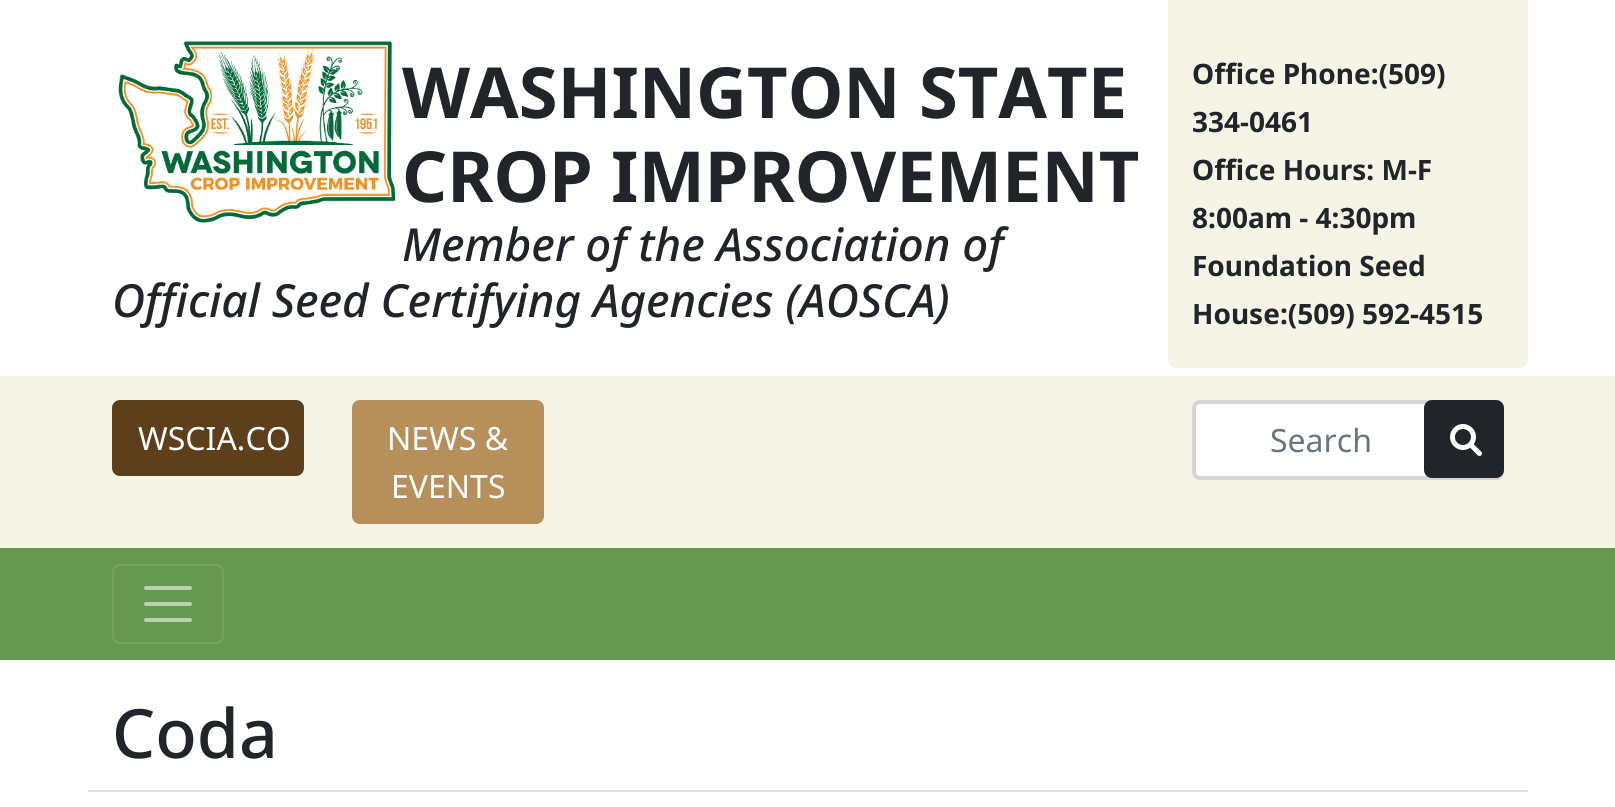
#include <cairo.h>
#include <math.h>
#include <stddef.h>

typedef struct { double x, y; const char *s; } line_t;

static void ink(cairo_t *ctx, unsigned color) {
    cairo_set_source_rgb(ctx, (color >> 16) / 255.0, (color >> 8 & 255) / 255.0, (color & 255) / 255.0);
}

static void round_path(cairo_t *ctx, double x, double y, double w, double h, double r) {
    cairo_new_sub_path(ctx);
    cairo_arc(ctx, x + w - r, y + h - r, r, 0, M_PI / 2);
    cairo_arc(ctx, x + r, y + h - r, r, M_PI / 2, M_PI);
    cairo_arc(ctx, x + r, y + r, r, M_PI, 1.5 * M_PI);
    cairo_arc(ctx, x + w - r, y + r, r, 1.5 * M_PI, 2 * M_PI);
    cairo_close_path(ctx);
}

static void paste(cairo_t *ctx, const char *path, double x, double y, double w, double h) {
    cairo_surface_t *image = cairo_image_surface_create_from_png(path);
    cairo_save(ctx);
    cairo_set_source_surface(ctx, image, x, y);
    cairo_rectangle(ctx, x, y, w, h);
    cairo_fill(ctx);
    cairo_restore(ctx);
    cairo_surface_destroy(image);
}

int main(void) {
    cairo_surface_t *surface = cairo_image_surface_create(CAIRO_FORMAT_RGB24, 1615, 807);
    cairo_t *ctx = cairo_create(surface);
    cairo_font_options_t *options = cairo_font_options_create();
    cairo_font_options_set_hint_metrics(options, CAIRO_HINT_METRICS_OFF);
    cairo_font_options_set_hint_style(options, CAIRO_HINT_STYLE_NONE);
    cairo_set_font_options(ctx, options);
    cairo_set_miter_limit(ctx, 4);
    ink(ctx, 0xFFFFFF);
    cairo_paint(ctx);
    paste(ctx, "media/1.png", 118, 41, 278, 182);
    cairo_select_font_face(ctx, "Noto Sans", CAIRO_FONT_SLANT_NORMAL, CAIRO_FONT_WEIGHT_BOLD);
    cairo_set_font_size(ctx, 70.4);
    ink(ctx, 0x212529);
    cairo_move_to(ctx, 402, 118);
    cairo_show_text(ctx, "WASHINGTON STATE");
    cairo_move_to(ctx, 402, 202);
    cairo_show_text(ctx, "CROP IMPROVEMENT");
    cairo_select_font_face(ctx, "Noto Sans Medium", CAIRO_FONT_SLANT_ITALIC, CAIRO_FONT_WEIGHT_NORMAL);
    cairo_set_font_size(ctx, 45.6);
    cairo_move_to(ctx, 402, 261);
    cairo_show_text(ctx, "Member of the Association of");
    cairo_move_to(ctx, 112, 317);
    cairo_show_text(ctx, "Official Seed Certifying Agencies (AOSCA)");
    ink(ctx, 0xF6F3E7);
    cairo_new_path(ctx);
    cairo_move_to(ctx, 1168, 0);
    cairo_line_to(ctx, 1528, 0);
    cairo_line_to(ctx, 1528, 360);
    cairo_curve_to(ctx, 1528, 364.5, 1524.5, 368, 1520, 368);
    cairo_line_to(ctx, 1176, 368);
    cairo_curve_to(ctx, 1171.5, 368, 1168, 364.5, 1168, 360);
    cairo_close_path(ctx);
    cairo_fill(ctx);
    cairo_select_font_face(ctx, "Noto Sans", CAIRO_FONT_SLANT_NORMAL, CAIRO_FONT_WEIGHT_BOLD);
    cairo_set_font_size(ctx, 28);
    ink(ctx, 0x212529);
    {
        static const line_t items[] = {
            {1192, 84, "Office Phone:(509)"},
            {1192, 132, "334-0461"},
            {1192, 180, "Office Hours: M-F"},
            {1192, 228, "8:00am - 4:30pm"},
            {1192, 276, "Foundation Seed"},
            {1192, 324, "House:(509) 592-4515"},
        };
        for (size_t i = 0; i < sizeof items / sizeof *items; i++) {
            cairo_move_to(ctx, items[i].x, items[i].y);
            cairo_show_text(ctx, items[i].s);
        }
    }
    ink(ctx, 0xF6F3E7);
    cairo_rectangle(ctx, 0, 376, 1615, 172);
    cairo_fill(ctx);
    ink(ctx, 0x5E3F1C);
    round_path(ctx, 112, 400, 192, 76, 8);
    cairo_fill(ctx);
    cairo_select_font_face(ctx, "Noto Sans", CAIRO_FONT_SLANT_NORMAL, CAIRO_FONT_WEIGHT_NORMAL);
    cairo_set_font_size(ctx, 32);
    ink(ctx, 0xFFFFFF);
    cairo_move_to(ctx, 138, 450);
    cairo_show_text(ctx, "WSCIA.CO");
    ink(ctx, 0xB68F5B);
    round_path(ctx, 352, 400, 192, 124, 8);
    cairo_fill(ctx);
    ink(ctx, 0xFFFFFF);
    cairo_move_to(ctx, 387, 450);
    cairo_show_text(ctx, "NEWS &");
    cairo_move_to(ctx, 391, 498);
    cairo_show_text(ctx, "EVENTS");
    round_path(ctx, 1194, 402, 308, 76, 6);
    cairo_fill_preserve(ctx);
    ink(ctx, 0xD6D4D4);
    cairo_set_line_width(ctx, 4);
    cairo_stroke(ctx);
    ink(ctx, 0x6C757D);
    cairo_move_to(ctx, 1270, 452);
    cairo_show_text(ctx, "Search");
    ink(ctx, 0x212529);
    round_path(ctx, 1425, 401, 78, 76, 7);
    cairo_fill_preserve(ctx);
    cairo_set_line_width(ctx, 2);
    cairo_stroke(ctx);
    paste(ctx, "media/2.png", 1450, 424, 32, 32);
    ink(ctx, 0x66984F);
    cairo_rectangle(ctx, 0, 548, 1615, 112);
    cairo_fill(ctx);
    round_path(ctx, 113, 565, 110, 78, 7);
    ink(ctx, 0x75A261);
    cairo_stroke(ctx);
    cairo_new_path(ctx);
    cairo_move_to(ctx, 146, 588);
    cairo_line_to(ctx, 190, 588);
    cairo_move_to(ctx, 146, 604);
    cairo_line_to(ctx, 190, 604);
    cairo_move_to(ctx, 146, 620);
    cairo_line_to(ctx, 190, 620);
    ink(ctx, 0xBAD1B0);
    cairo_set_line_width(ctx, 4);
    cairo_set_line_cap(ctx, CAIRO_LINE_CAP_ROUND);
    cairo_stroke(ctx);
    ink(ctx, 0xDEE2E6);
    cairo_rectangle(ctx, 88, 790, 1440, 2);
    cairo_fill(ctx);
    cairo_select_font_face(ctx, "Noto Sans Medium", CAIRO_FONT_SLANT_NORMAL, CAIRO_FONT_WEIGHT_NORMAL);
    cairo_set_font_size(ctx, 68);
    ink(ctx, 0x212529);
    cairo_move_to(ctx, 112, 758);
    cairo_show_text(ctx, "Coda");
    cairo_surface_write_to_png(surface, "image.png");
    cairo_font_options_destroy(options);
    cairo_destroy(ctx);
    cairo_surface_destroy(surface);
    return 0;
}
